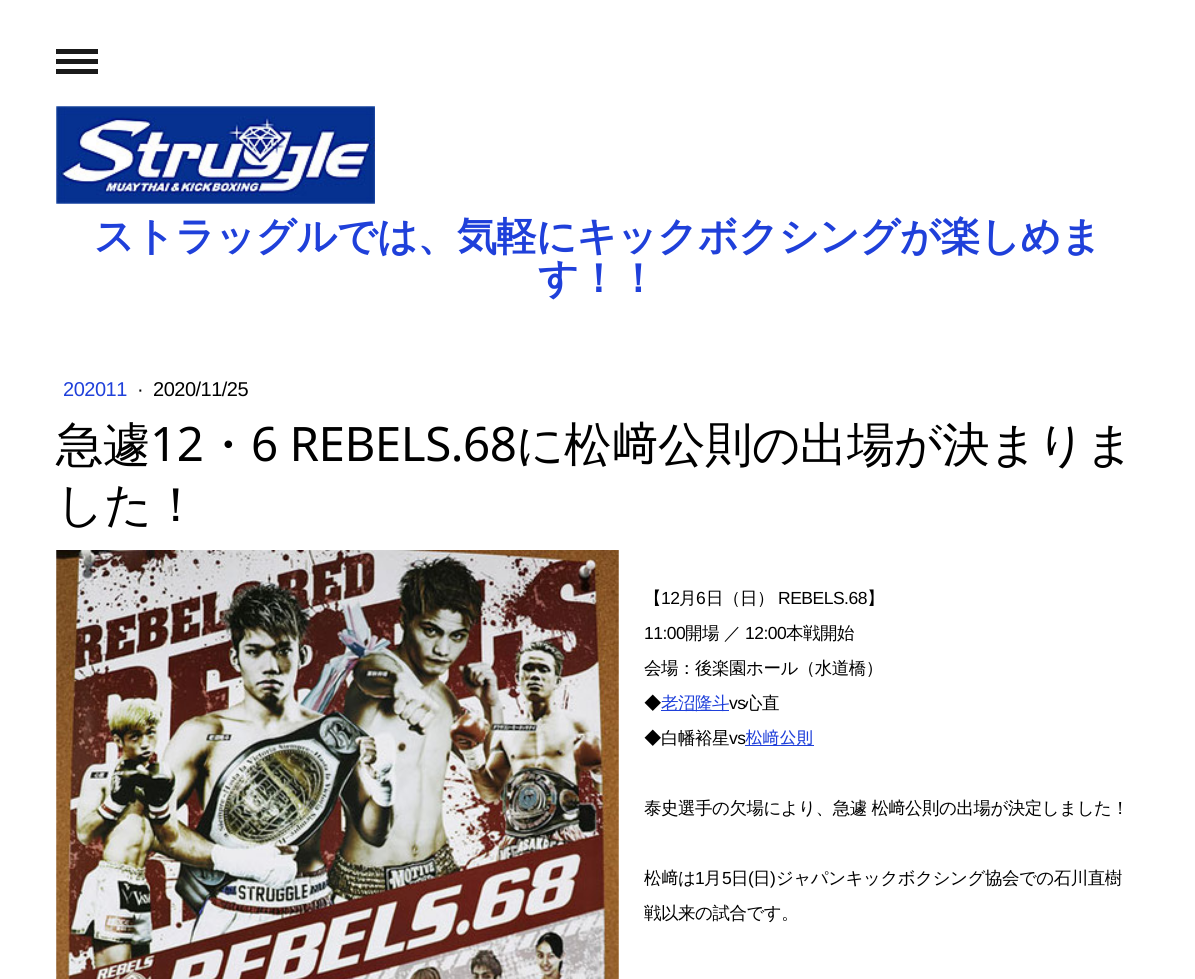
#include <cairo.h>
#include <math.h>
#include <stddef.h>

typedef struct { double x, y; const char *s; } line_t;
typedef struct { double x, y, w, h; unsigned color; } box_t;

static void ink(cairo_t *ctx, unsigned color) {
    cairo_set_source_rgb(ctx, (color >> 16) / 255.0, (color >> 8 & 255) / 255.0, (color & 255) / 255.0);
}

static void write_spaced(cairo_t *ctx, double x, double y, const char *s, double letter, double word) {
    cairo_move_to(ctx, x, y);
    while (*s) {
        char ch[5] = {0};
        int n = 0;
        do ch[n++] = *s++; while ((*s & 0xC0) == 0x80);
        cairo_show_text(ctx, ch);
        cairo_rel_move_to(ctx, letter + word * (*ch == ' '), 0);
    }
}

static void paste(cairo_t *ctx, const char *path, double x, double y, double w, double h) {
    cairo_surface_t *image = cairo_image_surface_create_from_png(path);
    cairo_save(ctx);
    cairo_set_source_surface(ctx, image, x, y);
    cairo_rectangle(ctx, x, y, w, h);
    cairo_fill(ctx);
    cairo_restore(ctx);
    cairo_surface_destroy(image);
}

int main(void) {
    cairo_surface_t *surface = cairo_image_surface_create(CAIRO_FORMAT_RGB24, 1195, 979);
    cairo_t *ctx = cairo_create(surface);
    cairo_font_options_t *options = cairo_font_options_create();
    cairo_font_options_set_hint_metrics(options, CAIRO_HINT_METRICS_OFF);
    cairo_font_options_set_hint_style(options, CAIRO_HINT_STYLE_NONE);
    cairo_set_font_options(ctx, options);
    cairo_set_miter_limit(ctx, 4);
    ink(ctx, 0xFFFFFF);
    cairo_paint(ctx);
    {
        static const box_t items[] = {
            {56, 59, 42, 5, 0x1A1A1A},
            {56, 49, 42, 5, 0x1A1A1A},
            {56, 69, 42, 5, 0x1A1A1A},
        };
        for (size_t i = 0; i < sizeof items / sizeof *items; i++) {
            ink(ctx, items[i].color);
            cairo_rectangle(ctx, items[i].x, items[i].y, items[i].w, items[i].h);
            cairo_fill(ctx);
        }
    }
    paste(ctx, "media/1.png", 56, 106, 319, 98);
    cairo_select_font_face(ctx, "WenQuanYi Zen Hei", CAIRO_FONT_SLANT_NORMAL, CAIRO_FONT_WEIGHT_BOLD);
    cairo_set_font_size(ctx, 40);
    ink(ctx, 0x1F40DA);
    write_spaced(ctx, 94, 250, "ストラッグルでは、気軽にキックボクシングが楽しめま", -0.5, 0);
    write_spaced(ctx, 538, 292, "す！！", -0.5, 0);
    cairo_select_font_face(ctx, "Liberation Sans", CAIRO_FONT_SLANT_NORMAL, CAIRO_FONT_WEIGHT_NORMAL);
    cairo_set_font_size(ctx, 20);
    write_spaced(ctx, 63, 396, "202011", -0.5, 0);
    ink(ctx, 0x000000);
    write_spaced(ctx, 137, 396, "·", -0.5, 0);
    write_spaced(ctx, 153, 396, "2020/11/25", -0.5, 0);
    cairo_select_font_face(ctx, "WenQuanYi Zen Hei Medium", CAIRO_FONT_SLANT_NORMAL, CAIRO_FONT_WEIGHT_NORMAL);
    cairo_set_font_size(ctx, 47.5);
    write_spaced(ctx, 56, 461, "急遽", -0.5, 0);
    cairo_select_font_face(ctx, "Noto Sans", CAIRO_FONT_SLANT_NORMAL, CAIRO_FONT_WEIGHT_NORMAL);
    write_spaced(ctx, 150, 461, "12", -0.5, 0);
    cairo_select_font_face(ctx, "WenQuanYi Zen Hei Medium", CAIRO_FONT_SLANT_NORMAL, CAIRO_FONT_WEIGHT_NORMAL);
    write_spaced(ctx, 204, 461, "・", -0.5, 0);
    cairo_select_font_face(ctx, "Noto Sans", CAIRO_FONT_SLANT_NORMAL, CAIRO_FONT_WEIGHT_NORMAL);
    write_spaced(ctx, 251, 461, "6 REBELS.68", -0.5, 0);
    cairo_select_font_face(ctx, "WenQuanYi Zen Hei Medium", CAIRO_FONT_SLANT_NORMAL, CAIRO_FONT_WEIGHT_NORMAL);
    write_spaced(ctx, 516, 461, "に松", -0.5, 0);
    cairo_select_font_face(ctx, "IPAPGothic", CAIRO_FONT_SLANT_NORMAL, CAIRO_FONT_WEIGHT_NORMAL);
    write_spaced(ctx, 611, 461, "﨑", -0.5, 0);
    cairo_select_font_face(ctx, "WenQuanYi Zen Hei Medium", CAIRO_FONT_SLANT_NORMAL, CAIRO_FONT_WEIGHT_NORMAL);
    write_spaced(ctx, 658, 461, "公則の出場が決まりま", -0.5, 0);
    write_spaced(ctx, 56, 521, "した！", -0.5, 0);
    paste(ctx, "media/2.png", 56, 550, 563, 429);
    cairo_set_font_size(ctx, 17.5);
    write_spaced(ctx, 644, 604, "【", -0.5, 0);
    cairo_select_font_face(ctx, "Liberation Sans", CAIRO_FONT_SLANT_NORMAL, CAIRO_FONT_WEIGHT_NORMAL);
    write_spaced(ctx, 661, 604, "12", -0.5, 0);
    cairo_select_font_face(ctx, "WenQuanYi Zen Hei Medium", CAIRO_FONT_SLANT_NORMAL, CAIRO_FONT_WEIGHT_NORMAL);
    write_spaced(ctx, 679, 604, "月", -0.5, 0);
    cairo_select_font_face(ctx, "Liberation Sans", CAIRO_FONT_SLANT_NORMAL, CAIRO_FONT_WEIGHT_NORMAL);
    write_spaced(ctx, 696, 604, "6", -0.5, 0);
    cairo_select_font_face(ctx, "WenQuanYi Zen Hei Medium", CAIRO_FONT_SLANT_NORMAL, CAIRO_FONT_WEIGHT_NORMAL);
    write_spaced(ctx, 706, 604, "日（日）", -0.5, 0);
    cairo_select_font_face(ctx, "Liberation Sans", CAIRO_FONT_SLANT_NORMAL, CAIRO_FONT_WEIGHT_NORMAL);
    write_spaced(ctx, 778, 604, "REBELS.68", -0.5, 0);
    cairo_select_font_face(ctx, "WenQuanYi Zen Hei Medium", CAIRO_FONT_SLANT_NORMAL, CAIRO_FONT_WEIGHT_NORMAL);
    write_spaced(ctx, 867, 604, "】", -0.5, 0);
    cairo_select_font_face(ctx, "Liberation Sans", CAIRO_FONT_SLANT_NORMAL, CAIRO_FONT_WEIGHT_NORMAL);
    write_spaced(ctx, 644, 639, "11:00", -0.5, 0);
    cairo_select_font_face(ctx, "WenQuanYi Zen Hei Medium", CAIRO_FONT_SLANT_NORMAL, CAIRO_FONT_WEIGHT_NORMAL);
    write_spaced(ctx, 685, 639, "開場 ／", -0.5, 0);
    cairo_select_font_face(ctx, "Liberation Sans", CAIRO_FONT_SLANT_NORMAL, CAIRO_FONT_WEIGHT_NORMAL);
    write_spaced(ctx, 745, 639, "12:00", -0.5, 0);
    cairo_select_font_face(ctx, "WenQuanYi Zen Hei Medium", CAIRO_FONT_SLANT_NORMAL, CAIRO_FONT_WEIGHT_NORMAL);
    {
        static const line_t items[] = {
            {786, 639, "本戦開始"},
            {644, 674, "会場：後楽園ホール（水道橋）"},
            {644, 709, "◆"},
        };
        for (size_t i = 0; i < sizeof items / sizeof *items; i++) {
            write_spaced(ctx, items[i].x, items[i].y, items[i].s, -0.5, 0);
        }
    }
    ink(ctx, 0x1F40DA);
    cairo_rectangle(ctx, 661, 710, 68, 1);
    cairo_fill(ctx);
    write_spaced(ctx, 661, 709, "老沼隆斗", -0.5, 0);
    cairo_select_font_face(ctx, "Liberation Sans", CAIRO_FONT_SLANT_NORMAL, CAIRO_FONT_WEIGHT_NORMAL);
    ink(ctx, 0x000000);
    write_spaced(ctx, 729, 709, "vs", -0.5, 0);
    cairo_select_font_face(ctx, "WenQuanYi Zen Hei Medium", CAIRO_FONT_SLANT_NORMAL, CAIRO_FONT_WEIGHT_NORMAL);
    write_spaced(ctx, 745, 709, "心直", -0.5, 0);
    write_spaced(ctx, 644, 744, "◆白幡裕星", -0.5, 0);
    cairo_select_font_face(ctx, "Liberation Sans", CAIRO_FONT_SLANT_NORMAL, CAIRO_FONT_WEIGHT_NORMAL);
    write_spaced(ctx, 729, 744, "vs", -0.5, 0);
    ink(ctx, 0x1F40DA);
    cairo_rectangle(ctx, 745, 745, 69, 1);
    cairo_fill(ctx);
    cairo_select_font_face(ctx, "IPAPGothic", CAIRO_FONT_SLANT_NORMAL, CAIRO_FONT_WEIGHT_NORMAL);
    write_spaced(ctx, 745, 744, "松﨑公則", -0.5, 0);
    cairo_select_font_face(ctx, "WenQuanYi Zen Hei Medium", CAIRO_FONT_SLANT_NORMAL, CAIRO_FONT_WEIGHT_NORMAL);
    ink(ctx, 0x000000);
    write_spaced(ctx, 644, 814, "泰史選手の欠場により、急遽 松", -0.5, 0);
    cairo_select_font_face(ctx, "IPAPGothic", CAIRO_FONT_SLANT_NORMAL, CAIRO_FONT_WEIGHT_NORMAL);
    write_spaced(ctx, 888, 814, "﨑", -0.5, 0);
    cairo_select_font_face(ctx, "WenQuanYi Zen Hei Medium", CAIRO_FONT_SLANT_NORMAL, CAIRO_FONT_WEIGHT_NORMAL);
    write_spaced(ctx, 905, 814, "公則の出場が決定しました！", -0.5, 0);
    write_spaced(ctx, 644, 884, "松", -0.5, 0);
    cairo_select_font_face(ctx, "IPAPGothic", CAIRO_FONT_SLANT_NORMAL, CAIRO_FONT_WEIGHT_NORMAL);
    write_spaced(ctx, 661, 884, "﨑", -0.5, 0);
    cairo_select_font_face(ctx, "WenQuanYi Zen Hei Medium", CAIRO_FONT_SLANT_NORMAL, CAIRO_FONT_WEIGHT_NORMAL);
    write_spaced(ctx, 678, 884, "は", -0.5, 0);
    cairo_select_font_face(ctx, "Liberation Sans", CAIRO_FONT_SLANT_NORMAL, CAIRO_FONT_WEIGHT_NORMAL);
    write_spaced(ctx, 695, 884, "1", -0.5, 0);
    cairo_select_font_face(ctx, "WenQuanYi Zen Hei Medium", CAIRO_FONT_SLANT_NORMAL, CAIRO_FONT_WEIGHT_NORMAL);
    write_spaced(ctx, 704, 884, "月", -0.5, 0);
    cairo_select_font_face(ctx, "Liberation Sans", CAIRO_FONT_SLANT_NORMAL, CAIRO_FONT_WEIGHT_NORMAL);
    write_spaced(ctx, 722, 884, "5", -0.5, 0);
    cairo_select_font_face(ctx, "WenQuanYi Zen Hei Medium", CAIRO_FONT_SLANT_NORMAL, CAIRO_FONT_WEIGHT_NORMAL);
    write_spaced(ctx, 731, 884, "日", -0.5, 0);
    cairo_select_font_face(ctx, "Liberation Sans", CAIRO_FONT_SLANT_NORMAL, CAIRO_FONT_WEIGHT_NORMAL);
    write_spaced(ctx, 748, 884, "(", -0.5, 0);
    cairo_select_font_face(ctx, "WenQuanYi Zen Hei Medium", CAIRO_FONT_SLANT_NORMAL, CAIRO_FONT_WEIGHT_NORMAL);
    write_spaced(ctx, 753, 884, "日", -0.5, 0);
    cairo_select_font_face(ctx, "Liberation Sans", CAIRO_FONT_SLANT_NORMAL, CAIRO_FONT_WEIGHT_NORMAL);
    write_spaced(ctx, 770, 884, ")", -0.5, 0);
    cairo_select_font_face(ctx, "WenQuanYi Zen Hei Medium", CAIRO_FONT_SLANT_NORMAL, CAIRO_FONT_WEIGHT_NORMAL);
    write_spaced(ctx, 776, 884, "ジャパンキックボクシング協会での石川直樹", -0.5, 0);
    write_spaced(ctx, 644, 919, "戦以来の試合です。", -0.5, 0);
    cairo_surface_write_to_png(surface, "image.png");
    cairo_font_options_destroy(options);
    cairo_destroy(ctx);
    cairo_surface_destroy(surface);
    return 0;
}
